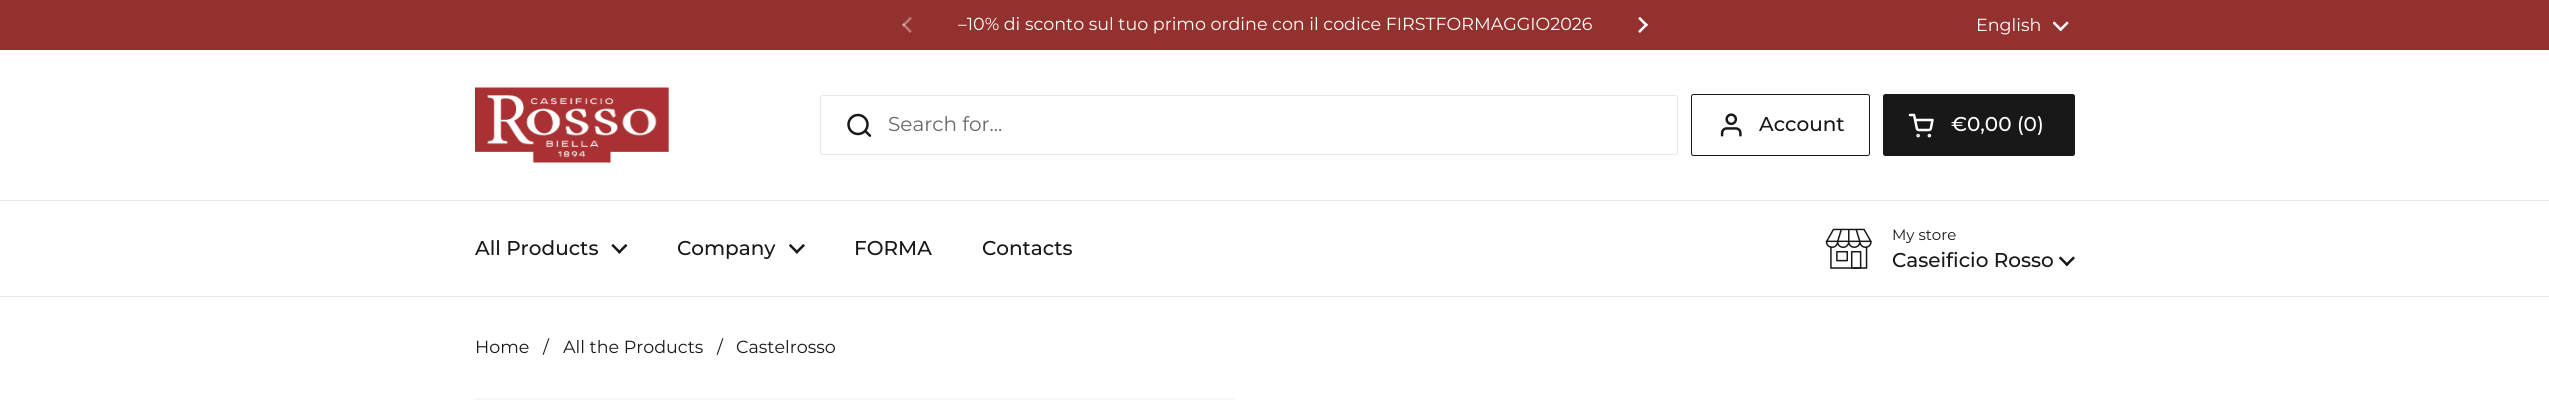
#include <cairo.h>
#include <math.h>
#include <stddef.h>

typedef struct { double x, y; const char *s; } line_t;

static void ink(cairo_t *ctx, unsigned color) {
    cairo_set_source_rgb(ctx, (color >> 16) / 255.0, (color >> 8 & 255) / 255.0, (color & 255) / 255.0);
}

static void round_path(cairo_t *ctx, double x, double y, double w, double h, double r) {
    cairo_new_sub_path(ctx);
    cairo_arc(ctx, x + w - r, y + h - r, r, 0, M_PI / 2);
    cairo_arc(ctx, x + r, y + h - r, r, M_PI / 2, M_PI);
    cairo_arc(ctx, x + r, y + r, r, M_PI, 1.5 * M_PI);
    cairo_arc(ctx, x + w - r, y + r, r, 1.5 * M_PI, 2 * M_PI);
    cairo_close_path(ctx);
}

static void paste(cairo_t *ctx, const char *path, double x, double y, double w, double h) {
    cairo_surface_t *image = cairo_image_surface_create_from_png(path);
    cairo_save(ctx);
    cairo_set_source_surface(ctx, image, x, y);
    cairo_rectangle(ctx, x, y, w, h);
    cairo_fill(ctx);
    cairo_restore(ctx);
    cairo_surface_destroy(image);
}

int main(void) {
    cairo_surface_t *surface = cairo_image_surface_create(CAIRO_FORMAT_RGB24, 2549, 400);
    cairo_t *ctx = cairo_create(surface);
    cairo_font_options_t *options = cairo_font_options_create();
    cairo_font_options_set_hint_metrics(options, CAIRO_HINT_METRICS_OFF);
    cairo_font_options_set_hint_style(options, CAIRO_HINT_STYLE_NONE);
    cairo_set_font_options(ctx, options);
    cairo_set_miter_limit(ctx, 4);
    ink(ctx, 0xFFFFFF);
    cairo_paint(ctx);
    ink(ctx, 0x93312E);
    cairo_rectangle(ctx, 0, 0, 2549, 50);
    cairo_fill(ctx);
    paste(ctx, "media/1.png", 902, 17, 10, 16);
    cairo_select_font_face(ctx, "Montserrat", CAIRO_FONT_SLANT_NORMAL, CAIRO_FONT_WEIGHT_NORMAL);
    cairo_set_font_size(ctx, 17.5);
    ink(ctx, 0xFFFFFF);
    cairo_move_to(ctx, 958, 30);
    cairo_show_text(ctx, "–10% di sconto sul tuo primo ordine con il codice FIRSTFORMAGGIO2026");
    paste(ctx, "media/2.png", 1638, 17, 10, 16);
    cairo_move_to(ctx, 1976, 31);
    cairo_show_text(ctx, "English");
    paste(ctx, "media/3.png", 2053, 21, 16, 10);
    ink(ctx, 0xE8E8E8);
    cairo_rectangle(ctx, 0, 200, 2549, 1);
    cairo_fill(ctx);
    paste(ctx, "media/4.png", 475, 87, 194, 76);
    round_path(ctx, 820.5, 95.5, 857, 59, 2);
    cairo_set_line_width(ctx, 1);
    cairo_stroke(ctx);
    paste(ctx, "media/5.png", 847, 113, 25, 24);
    cairo_set_font_size(ctx, 20);
    ink(ctx, 0x676767);
    cairo_move_to(ctx, 888, 131);
    cairo_show_text(ctx, "Search for...");
    round_path(ctx, 1691.5, 94.5, 178, 61, 2);
    ink(ctx, 0x181818);
    cairo_stroke(ctx);
    paste(ctx, "media/6.png", 1720, 113, 22, 24);
    cairo_select_font_face(ctx, "Montserrat Medium", CAIRO_FONT_SLANT_NORMAL, CAIRO_FONT_WEIGHT_NORMAL);
    cairo_move_to(ctx, 1759, 131);
    cairo_show_text(ctx, "Account");
    round_path(ctx, 1883.5, 94.5, 191, 61, 2);
    cairo_fill_preserve(ctx);
    cairo_stroke(ctx);
    paste(ctx, "media/7.png", 1908, 113, 26, 25);
    ink(ctx, 0xFFFFFF);
    cairo_move_to(ctx, 1951, 131);
    cairo_show_text(ctx, "€0,00 (0)");
    ink(ctx, 0xE8E8E8);
    cairo_rectangle(ctx, 0, 296, 2549, 1);
    cairo_fill(ctx);
    ink(ctx, 0x181818);
    cairo_move_to(ctx, 475, 255);
    cairo_show_text(ctx, "All Products");
    paste(ctx, "media/8.png", 611, 244, 17, 10);
    cairo_move_to(ctx, 677, 255);
    cairo_show_text(ctx, "Company");
    paste(ctx, "media/9.png", 789, 244, 16, 10);
    cairo_move_to(ctx, 854, 255);
    cairo_show_text(ctx, "FORMA");
    cairo_move_to(ctx, 982, 255);
    cairo_show_text(ctx, "Contacts");
    paste(ctx, "media/10.png", 1825, 228, 47, 41);
    cairo_select_font_face(ctx, "Montserrat", CAIRO_FONT_SLANT_NORMAL, CAIRO_FONT_WEIGHT_NORMAL);
    cairo_set_font_size(ctx, 15);
    cairo_move_to(ctx, 1892, 240);
    cairo_show_text(ctx, "My store");
    cairo_select_font_face(ctx, "Montserrat Medium", CAIRO_FONT_SLANT_NORMAL, CAIRO_FONT_WEIGHT_NORMAL);
    cairo_set_font_size(ctx, 20);
    cairo_move_to(ctx, 1892, 267);
    cairo_show_text(ctx, "Caseificio Rosso");
    paste(ctx, "media/11.png", 2059, 256, 16, 10);
    cairo_select_font_face(ctx, "Montserrat", CAIRO_FONT_SLANT_NORMAL, CAIRO_FONT_WEIGHT_NORMAL);
    cairo_set_font_size(ctx, 17.5);
    {
        static const line_t items[] = {
            {475, 353, "Home"},
            {543, 353, "/"},
            {563, 353, "All the Products"},
            {717, 353, "/"},
            {736, 353, "Castelrosso"},
        };
        for (size_t i = 0; i < sizeof items / sizeof *items; i++) {
            cairo_move_to(ctx, items[i].x, items[i].y);
            cairo_show_text(ctx, items[i].s);
        }
    }
    paste(ctx, "media/12.png", 475, 398, 760, 2);
    cairo_surface_write_to_png(surface, "image.png");
    cairo_font_options_destroy(options);
    cairo_destroy(ctx);
    cairo_surface_destroy(surface);
    return 0;
}
